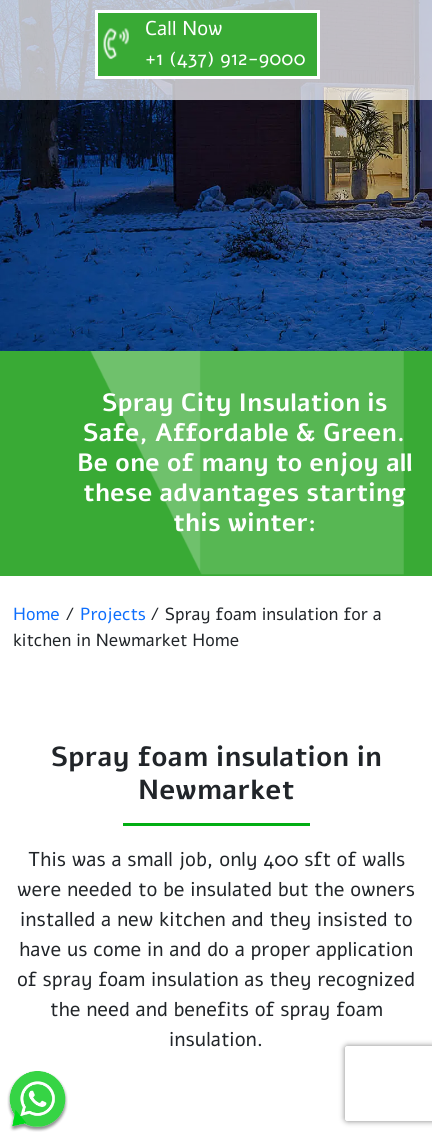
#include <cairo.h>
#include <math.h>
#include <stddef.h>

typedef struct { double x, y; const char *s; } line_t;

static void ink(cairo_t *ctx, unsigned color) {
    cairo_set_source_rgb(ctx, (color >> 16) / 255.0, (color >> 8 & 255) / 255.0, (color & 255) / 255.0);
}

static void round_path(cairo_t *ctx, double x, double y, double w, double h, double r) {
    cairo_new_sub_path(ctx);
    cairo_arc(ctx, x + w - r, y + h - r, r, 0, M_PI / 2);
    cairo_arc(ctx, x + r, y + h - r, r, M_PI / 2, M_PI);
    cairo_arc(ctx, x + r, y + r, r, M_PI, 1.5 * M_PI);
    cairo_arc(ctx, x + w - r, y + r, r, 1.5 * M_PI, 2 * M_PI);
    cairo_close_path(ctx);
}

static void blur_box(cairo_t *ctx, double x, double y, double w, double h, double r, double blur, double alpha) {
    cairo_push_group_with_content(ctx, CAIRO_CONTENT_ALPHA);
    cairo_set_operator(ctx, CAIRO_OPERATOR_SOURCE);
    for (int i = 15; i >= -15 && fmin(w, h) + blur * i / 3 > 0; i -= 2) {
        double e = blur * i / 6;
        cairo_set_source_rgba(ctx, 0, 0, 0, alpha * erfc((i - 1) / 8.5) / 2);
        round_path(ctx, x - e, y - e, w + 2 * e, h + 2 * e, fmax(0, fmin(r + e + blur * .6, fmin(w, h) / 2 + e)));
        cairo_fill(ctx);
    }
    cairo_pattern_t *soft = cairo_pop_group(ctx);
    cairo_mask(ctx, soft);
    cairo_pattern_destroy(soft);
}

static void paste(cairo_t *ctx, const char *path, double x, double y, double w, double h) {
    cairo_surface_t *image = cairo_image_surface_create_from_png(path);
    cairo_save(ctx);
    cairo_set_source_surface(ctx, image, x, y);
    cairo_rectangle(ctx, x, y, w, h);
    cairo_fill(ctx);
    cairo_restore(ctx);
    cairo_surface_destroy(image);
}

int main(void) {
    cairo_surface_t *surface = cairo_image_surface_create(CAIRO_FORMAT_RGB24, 432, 1138);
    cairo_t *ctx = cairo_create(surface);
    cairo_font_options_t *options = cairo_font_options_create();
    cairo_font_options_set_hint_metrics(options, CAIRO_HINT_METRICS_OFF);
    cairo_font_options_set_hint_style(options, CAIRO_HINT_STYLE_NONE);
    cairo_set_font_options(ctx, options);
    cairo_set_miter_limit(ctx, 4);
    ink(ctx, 0xFFFFFF);
    cairo_paint(ctx);
    paste(ctx, "media/3.png", 0, 0, 432, 351);
    cairo_set_source_rgba(ctx, 0.976, 0.969, 0.988, 0.65);
    cairo_rectangle(ctx, 0, 0, 432, 100);
    cairo_fill(ctx);
    cairo_set_source_rgba(ctx, 0.976, 0.969, 0.988, 0.28);
    cairo_rectangle(ctx, 0, 0, 432, 100);
    cairo_fill(ctx);
    ink(ctx, 0x39AA35);
    cairo_rectangle(ctx, 96.5, 11.5, 222, 66);
    cairo_fill_preserve(ctx);
    ink(ctx, 0xFFFFFF);
    cairo_set_line_width(ctx, 3);
    cairo_stroke(ctx);
    paste(ctx, "media/1.png", 103, 28, 26, 32);
    cairo_select_font_face(ctx, "Alef", CAIRO_FONT_SLANT_NORMAL, CAIRO_FONT_WEIGHT_NORMAL);
    cairo_set_font_size(ctx, 20);
    cairo_move_to(ctx, 145, 35);
    cairo_show_text(ctx, "Call Now");
    cairo_move_to(ctx, 145, 65);
    cairo_show_text(ctx, "+1 (437) 912-9000");
    ink(ctx, 0x39AA35);
    cairo_rectangle(ctx, 0, 351, 432, 225);
    cairo_fill(ctx);
    paste(ctx, "media/2.png", 90, 351, 314, 224);
    cairo_select_font_face(ctx, "Alef", CAIRO_FONT_SLANT_NORMAL, CAIRO_FONT_WEIGHT_BOLD);
    cairo_set_font_size(ctx, 25);
    ink(ctx, 0xFFFFFF);
    {
        static const line_t items[] = {
            {102, 411, "Spray City Insulation is"},
            {83, 441, "Safe, Affordable & Green."},
            {77, 471, "Be one of many to enjoy all"},
            {83, 501, "these advantages starting"},
            {173, 531, "this winter:"},
        };
        for (size_t i = 0; i < sizeof items / sizeof *items; i++) {
            cairo_move_to(ctx, items[i].x, items[i].y);
            cairo_show_text(ctx, items[i].s);
        }
    }
    cairo_select_font_face(ctx, "Alef", CAIRO_FONT_SLANT_NORMAL, CAIRO_FONT_WEIGHT_NORMAL);
    cairo_set_font_size(ctx, 17.5);
    ink(ctx, 0x0D6EFD);
    cairo_move_to(ctx, 13, 620);
    cairo_show_text(ctx, "Home");
    ink(ctx, 0x212529);
    cairo_move_to(ctx, 65, 620);
    cairo_show_text(ctx, "/");
    ink(ctx, 0x0D6EFD);
    cairo_move_to(ctx, 80, 620);
    cairo_show_text(ctx, "Projects");
    ink(ctx, 0x212529);
    cairo_move_to(ctx, 150, 620);
    cairo_show_text(ctx, "/ Spray foam insulation for a");
    cairo_move_to(ctx, 13, 646);
    cairo_show_text(ctx, "kitchen in Newmarket Home");
    cairo_select_font_face(ctx, "Alef", CAIRO_FONT_SLANT_NORMAL, CAIRO_FONT_WEIGHT_BOLD);
    cairo_set_font_size(ctx, 27.5);
    cairo_move_to(ctx, 51, 766);
    cairo_show_text(ctx, "Spray foam insulation in");
    cairo_move_to(ctx, 138, 799);
    cairo_show_text(ctx, "Newmarket");
    ink(ctx, 0x02AE13);
    cairo_rectangle(ctx, 123, 823, 187, 3);
    cairo_fill(ctx);
    cairo_select_font_face(ctx, "Alef", CAIRO_FONT_SLANT_NORMAL, CAIRO_FONT_WEIGHT_NORMAL);
    cairo_set_font_size(ctx, 20);
    ink(ctx, 0x212529);
    {
        static const line_t items[] = {
            {28, 866, "This was a small job, only 400 sft of walls"},
            {17, 896, "were needed to be insulated but the owners"},
            {20, 926, "installed a new kitchen and they insisted to"},
            {19, 956, "have us come in and do a proper application"},
            {17, 986, "of spray foam insulation as they recognized"},
            {50, 1016, "the need and benefits of spray foam"},
            {169, 1046, "insulation."},
        };
        for (size_t i = 0; i < sizeof items / sizeof *items; i++) {
            cairo_move_to(ctx, items[i].x, items[i].y);
            cairo_show_text(ctx, items[i].s);
        }
    }
    paste(ctx, "media/4.png", 7, 1071, 61, 61);
    cairo_save(ctx);
    cairo_set_fill_rule(ctx, CAIRO_FILL_RULE_EVEN_ODD);
    cairo_new_path(ctx);
    cairo_move_to(ctx, 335, 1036);
    cairo_line_to(ctx, 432, 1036);
    cairo_line_to(ctx, 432, 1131);
    cairo_line_to(ctx, 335, 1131);
    cairo_close_path(ctx);
    cairo_move_to(ctx, 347.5, 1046);
    cairo_line_to(ctx, 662.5, 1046);
    cairo_curve_to(ctx, 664, 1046, 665, 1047, 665, 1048.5);
    cairo_line_to(ctx, 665, 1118.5);
    cairo_curve_to(ctx, 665, 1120, 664, 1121, 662.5, 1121);
    cairo_line_to(ctx, 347.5, 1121);
    cairo_curve_to(ctx, 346, 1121, 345, 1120, 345, 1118.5);
    cairo_line_to(ctx, 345, 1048.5);
    cairo_curve_to(ctx, 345, 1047, 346, 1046, 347.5, 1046);
    cairo_close_path(ctx);
    cairo_clip(ctx);
    ink(ctx, 0x808080);
    blur_box(ctx, 345, 1046, 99, 75, 2.5, 3, 1);
    cairo_restore(ctx);
    cairo_surface_write_to_png(surface, "image.png");
    cairo_font_options_destroy(options);
    cairo_destroy(ctx);
    cairo_surface_destroy(surface);
    return 0;
}
